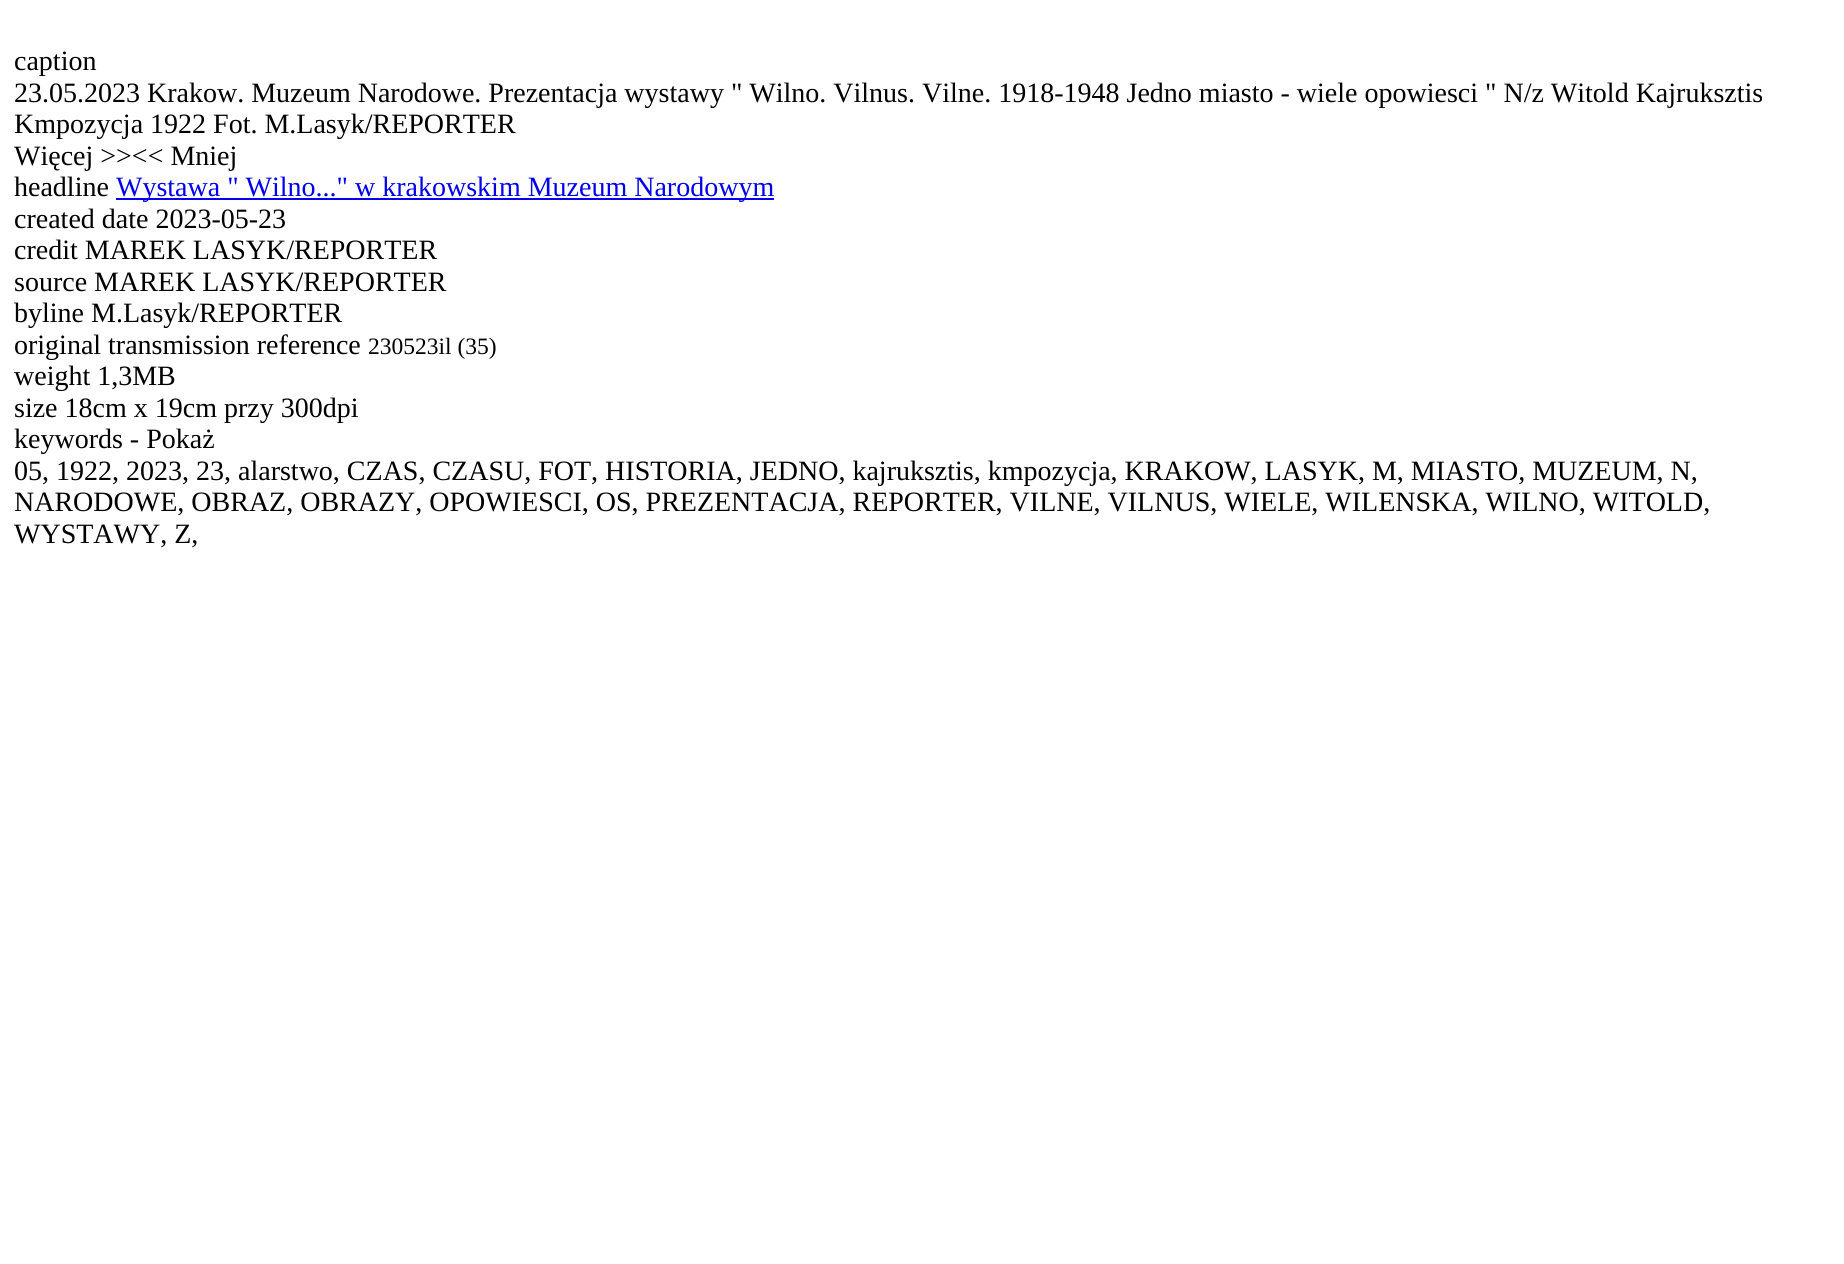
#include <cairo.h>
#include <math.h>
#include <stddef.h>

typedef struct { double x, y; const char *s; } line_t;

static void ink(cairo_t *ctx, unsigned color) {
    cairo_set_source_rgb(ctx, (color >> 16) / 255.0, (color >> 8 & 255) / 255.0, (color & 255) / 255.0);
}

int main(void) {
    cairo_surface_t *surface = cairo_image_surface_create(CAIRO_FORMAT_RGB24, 1844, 1264);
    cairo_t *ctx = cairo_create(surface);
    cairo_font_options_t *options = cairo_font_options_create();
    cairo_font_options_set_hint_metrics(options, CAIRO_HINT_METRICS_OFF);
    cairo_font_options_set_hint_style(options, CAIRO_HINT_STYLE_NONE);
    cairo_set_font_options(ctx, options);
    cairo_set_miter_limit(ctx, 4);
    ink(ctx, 0xFFFFFF);
    cairo_paint(ctx);
    cairo_select_font_face(ctx, "Liberation Serif", CAIRO_FONT_SLANT_NORMAL, CAIRO_FONT_WEIGHT_NORMAL);
    cairo_set_font_size(ctx, 28);
    ink(ctx, 0x000000);
    {
        static const line_t items[] = {
            {14, 70, "caption"},
            {14, 102, "23.05.2023 Krakow. Muzeum Narodowe. Prezentacja wystawy \" Wilno. Vilnus. Vilne. 1918-1948 Jedno miasto - wiele opowiesci \" N/z Witold Kajruksztis"},
            {14, 133, "Kmpozycja 1922 Fot. M.Lasyk/REPORTER"},
            {14, 165, "Więcej >><< Mniej"},
            {14, 196, "headline"},
        };
        for (size_t i = 0; i < sizeof items / sizeof *items; i++) {
            cairo_move_to(ctx, items[i].x, items[i].y);
            cairo_show_text(ctx, items[i].s);
        }
    }
    ink(ctx, 0x0000EE);
    cairo_rectangle(ctx, 116, 198, 658, 2);
    cairo_fill(ctx);
    cairo_move_to(ctx, 116, 196);
    cairo_show_text(ctx, "Wystawa \" Wilno...\" w krakowskim Muzeum Narodowym");
    ink(ctx, 0x000000);
    {
        static const line_t items[] = {
            {14, 228, "created date 2023-05-23"},
            {14, 259, "credit MAREK LASYK/REPORTER"},
            {14, 291, "source MAREK LASYK/REPORTER"},
            {14, 322, "byline M.Lasyk/REPORTER"},
            {14, 354, "original transmission reference"},
        };
        for (size_t i = 0; i < sizeof items / sizeof *items; i++) {
            cairo_move_to(ctx, items[i].x, items[i].y);
            cairo_show_text(ctx, items[i].s);
        }
    }
    cairo_set_font_size(ctx, 23.5);
    cairo_move_to(ctx, 368, 354);
    cairo_show_text(ctx, "230523il (35)");
    cairo_set_font_size(ctx, 28);
    {
        static const line_t items[] = {
            {14, 385, "weight 1,3MB"},
            {14, 417, "size 18cm x 19cm przy 300dpi"},
            {14, 448, "keywords - Pokaż"},
            {14, 480, "05, 1922, 2023, 23, alarstwo, CZAS, CZASU, FOT, HISTORIA, JEDNO, kajruksztis, kmpozycja, KRAKOW, LASYK, M, MIASTO, MUZEUM, N,"},
            {14, 511, "NARODOWE, OBRAZ, OBRAZY, OPOWIESCI, OS, PREZENTACJA, REPORTER, VILNE, VILNUS, WIELE, WILENSKA, WILNO, WITOLD,"},
            {14, 543, "WYSTAWY, Z,"},
        };
        for (size_t i = 0; i < sizeof items / sizeof *items; i++) {
            cairo_move_to(ctx, items[i].x, items[i].y);
            cairo_show_text(ctx, items[i].s);
        }
    }
    cairo_surface_write_to_png(surface, "image.png");
    cairo_font_options_destroy(options);
    cairo_destroy(ctx);
    cairo_surface_destroy(surface);
    return 0;
}
